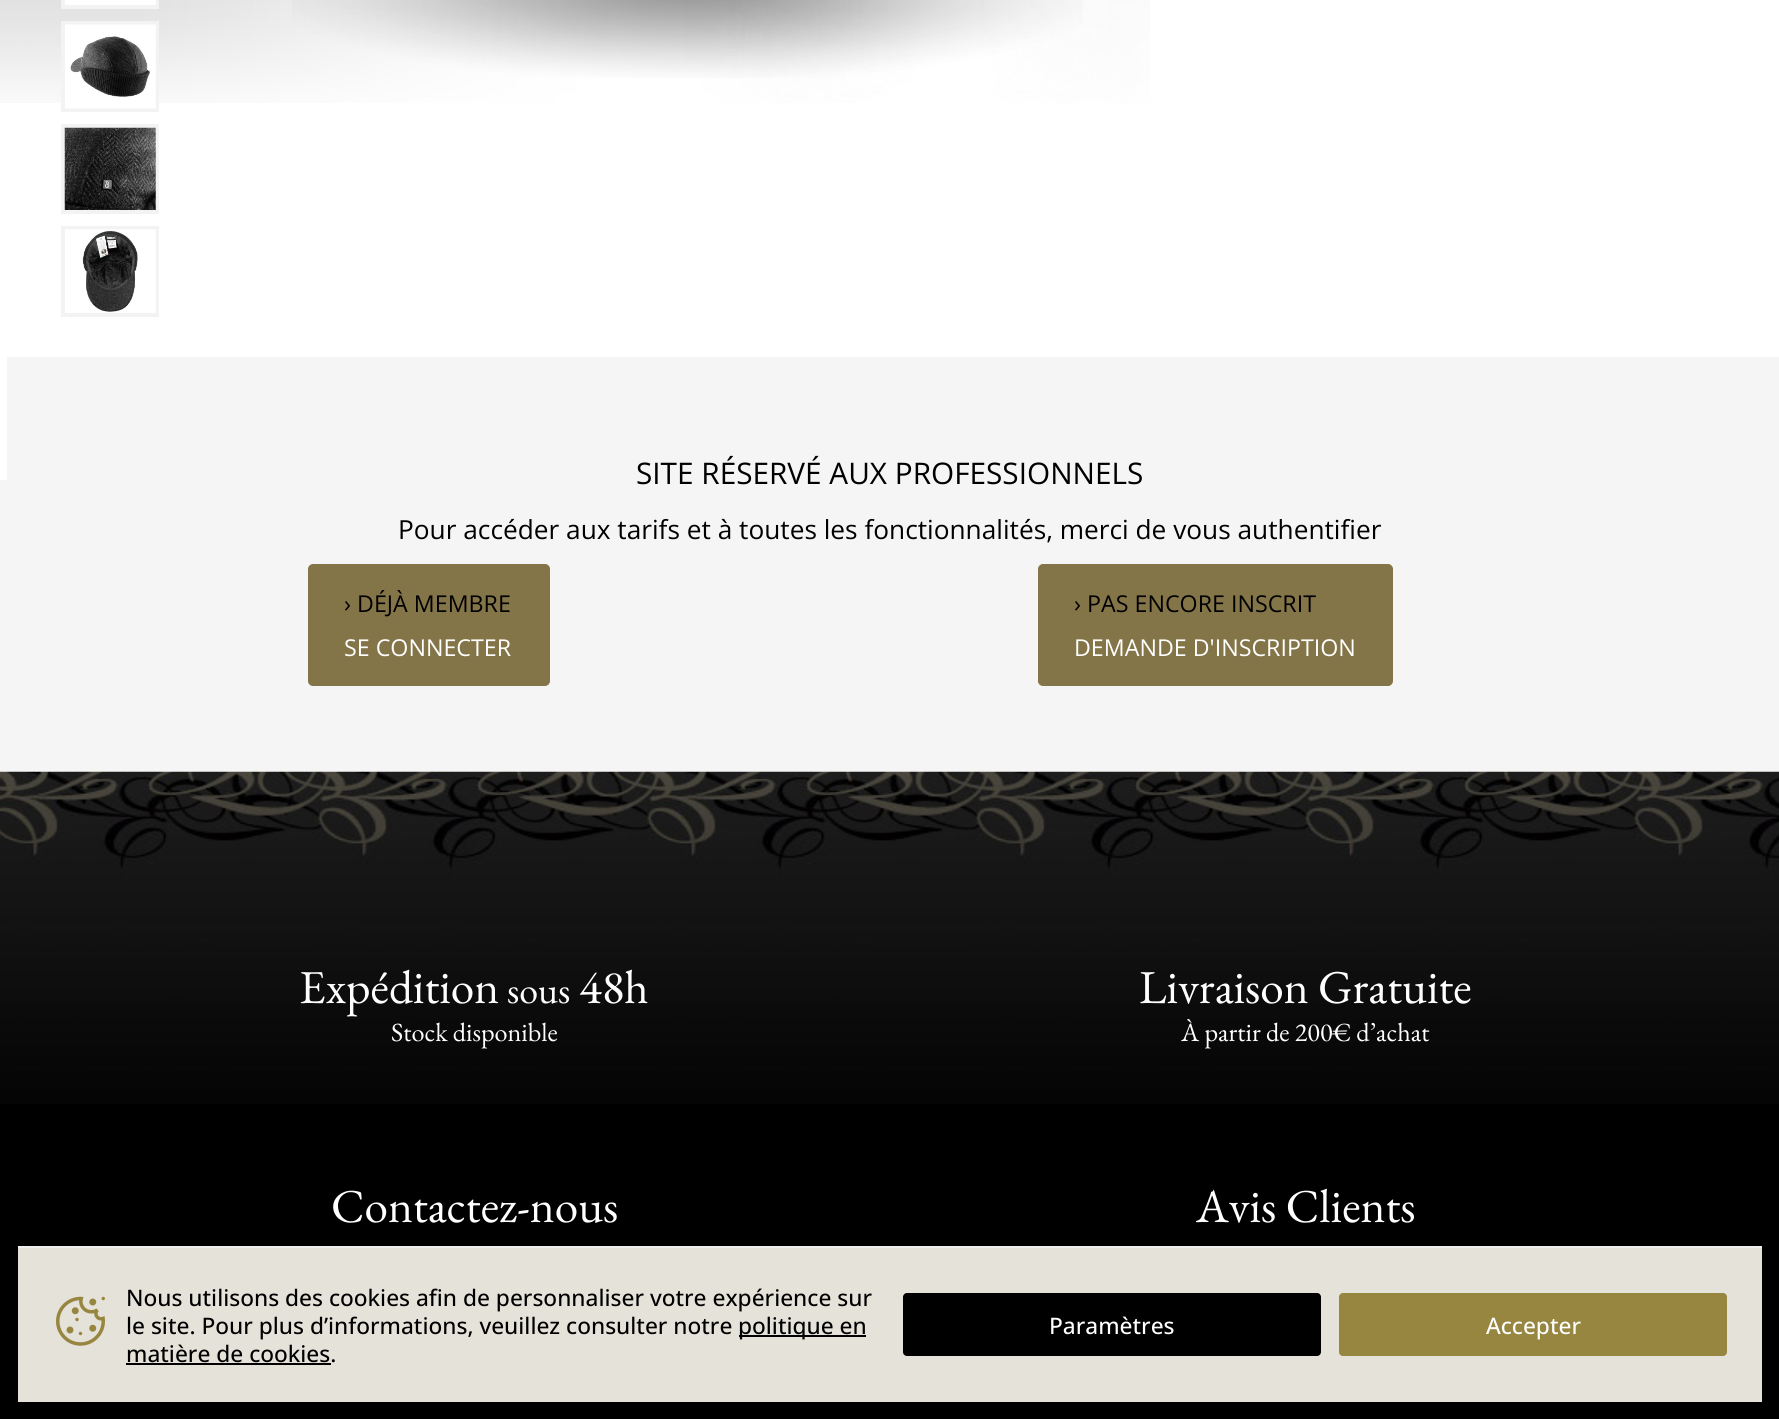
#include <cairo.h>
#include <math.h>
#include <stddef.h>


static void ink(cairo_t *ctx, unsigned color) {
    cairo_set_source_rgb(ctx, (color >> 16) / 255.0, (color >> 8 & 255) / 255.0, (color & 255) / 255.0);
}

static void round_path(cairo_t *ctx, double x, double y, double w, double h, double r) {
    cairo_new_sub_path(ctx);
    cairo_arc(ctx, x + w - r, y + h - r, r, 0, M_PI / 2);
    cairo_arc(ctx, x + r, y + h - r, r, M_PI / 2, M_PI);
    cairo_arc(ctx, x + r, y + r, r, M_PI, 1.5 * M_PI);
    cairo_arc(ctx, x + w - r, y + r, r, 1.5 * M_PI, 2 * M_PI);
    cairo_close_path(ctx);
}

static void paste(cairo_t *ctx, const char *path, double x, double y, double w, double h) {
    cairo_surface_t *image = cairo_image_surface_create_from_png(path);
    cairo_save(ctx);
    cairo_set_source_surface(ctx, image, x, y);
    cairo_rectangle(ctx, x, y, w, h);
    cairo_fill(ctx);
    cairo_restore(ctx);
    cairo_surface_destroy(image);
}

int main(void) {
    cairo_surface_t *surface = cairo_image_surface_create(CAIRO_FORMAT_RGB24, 1779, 1419);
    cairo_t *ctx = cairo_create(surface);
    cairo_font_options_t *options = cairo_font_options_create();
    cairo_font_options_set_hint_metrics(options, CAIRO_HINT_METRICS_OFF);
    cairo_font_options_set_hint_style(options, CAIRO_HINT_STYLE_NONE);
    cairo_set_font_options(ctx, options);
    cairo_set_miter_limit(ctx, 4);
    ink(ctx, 0xFFFFFF);
    cairo_paint(ctx);
    paste(ctx, "media/5.png", 292, 0, 791, 78);
    paste(ctx, "media/4.png", 0, 0, 1150, 103);
    cairo_rectangle(ctx, 63, -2, 94, 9);
    ink(ctx, 0xF3F3F3);
    cairo_set_line_width(ctx, 4);
    cairo_stroke(ctx);
    ink(ctx, 0xFFFFFF);
    cairo_rectangle(ctx, 65, 0, 91, 5);
    cairo_fill(ctx);
    cairo_rectangle(ctx, 63, 23, 94, 87);
    ink(ctx, 0xF3F3F3);
    cairo_stroke(ctx);
    paste(ctx, "media/1.png", 65, 24, 91, 85);
    cairo_rectangle(ctx, 63, 126, 94, 86);
    cairo_stroke(ctx);
    paste(ctx, "media/2.png", 64, 127, 92, 83);
    cairo_rectangle(ctx, 63, 228, 94, 87);
    cairo_stroke(ctx);
    paste(ctx, "media/3.png", 65, 229, 91, 84);
    ink(ctx, 0xF5F5F5);
    cairo_rectangle(ctx, 0, 357, 1779, 415);
    cairo_fill(ctx);
    ink(ctx, 0xFFFFFF);
    cairo_rectangle(ctx, 0, 357, 7, 123);
    cairo_fill(ctx);
    cairo_select_font_face(ctx, "Open Sans", CAIRO_FONT_SLANT_NORMAL, CAIRO_FONT_WEIGHT_NORMAL);
    cairo_set_font_size(ctx, 29.75);
    ink(ctx, 0x000000);
    cairo_move_to(ctx, 636, 484);
    cairo_show_text(ctx, "SITE RÉSERVÉ AUX PROFESSIONNELS");
    cairo_set_font_size(ctx, 26.25);
    cairo_move_to(ctx, 398, 539);
    cairo_show_text(ctx, "Pour accéder aux tarifs et à toutes les fonctionnalités, merci de vous authentifier");
    ink(ctx, 0x847548);
    round_path(ctx, 309, 565, 240, 120, 4);
    cairo_fill_preserve(ctx);
    cairo_set_line_width(ctx, 2);
    cairo_stroke(ctx);
    cairo_set_font_size(ctx, 23.25);
    ink(ctx, 0x000000);
    cairo_move_to(ctx, 344, 612);
    cairo_show_text(ctx, "› DÉJÀ MEMBRE");
    ink(ctx, 0xFFFFFF);
    cairo_move_to(ctx, 344, 656);
    cairo_show_text(ctx, "SE CONNECTER");
    ink(ctx, 0x847548);
    round_path(ctx, 1039, 565, 353, 120, 4);
    cairo_fill_preserve(ctx);
    cairo_stroke(ctx);
    ink(ctx, 0x000000);
    cairo_move_to(ctx, 1074, 612);
    cairo_show_text(ctx, "› PAS ENCORE INSCRIT");
    ink(ctx, 0xFFFFFF);
    cairo_move_to(ctx, 1074, 656);
    cairo_show_text(ctx, "DEMANDE D'INSCRIPTION");
    ink(ctx, 0x000000);
    cairo_rectangle(ctx, 0, 1104, 1779, 315);
    cairo_fill(ctx);
    paste(ctx, "media/6.png", 0, 771, 1779, 333);
    cairo_select_font_face(ctx, "EB Garamond", CAIRO_FONT_SLANT_NORMAL, CAIRO_FONT_WEIGHT_NORMAL);
    cairo_set_font_size(ctx, 47.25);
    ink(ctx, 0xFFFFFF);
    cairo_move_to(ctx, 299, 1003);
    cairo_show_text(ctx, "Expédition");
    cairo_set_font_size(ctx, 38);
    cairo_move_to(ctx, 507, 1003);
    cairo_show_text(ctx, "sous");
    cairo_set_font_size(ctx, 47.25);
    cairo_move_to(ctx, 579, 1003);
    cairo_show_text(ctx, "48h");
    cairo_set_font_size(ctx, 26.25);
    cairo_move_to(ctx, 391, 1041);
    cairo_show_text(ctx, "Stock disponible");
    cairo_set_font_size(ctx, 47.25);
    cairo_move_to(ctx, 1139, 1003);
    cairo_show_text(ctx, "Livraison Gratuite");
    cairo_set_font_size(ctx, 26.25);
    cairo_move_to(ctx, 1181, 1041);
    cairo_show_text(ctx, "À partir de 200€ d’achat");
    cairo_set_font_size(ctx, 47.25);
    cairo_move_to(ctx, 331, 1222);
    cairo_show_text(ctx, "Contactez-nous");
    cairo_move_to(ctx, 1196, 1222);
    cairo_show_text(ctx, "Avis Clients");
    ink(ctx, 0xE5E2D9);
    cairo_rectangle(ctx, 18, 1248, 1744, 154);
    cairo_fill(ctx);
    ink(ctx, 0xF0EEEC);
    cairo_rectangle(ctx, 18, 1246, 1744, 2);
    cairo_fill(ctx);
    paste(ctx, "media/7.png", 56, 1296, 49, 50);
    cairo_select_font_face(ctx, "Open Sans Medium", CAIRO_FONT_SLANT_NORMAL, CAIRO_FONT_WEIGHT_NORMAL);
    cairo_set_font_size(ctx, 22.75);
    ink(ctx, 0x000000);
    cairo_move_to(ctx, 126, 1306);
    cairo_show_text(ctx, "Nous utilisons des cookies afin de personnaliser votre expérience sur");
    cairo_move_to(ctx, 126, 1334);
    cairo_show_text(ctx, "le site. Pour plus d’informations, veuillez consulter notre");
    cairo_rectangle(ctx, 739, 1335, 127, 2);
    cairo_fill(ctx);
    cairo_move_to(ctx, 738, 1334);
    cairo_show_text(ctx, "politique en");
    cairo_move_to(ctx, 126, 1362);
    cairo_show_text(ctx, "matière de cookies.");
    cairo_rectangle(ctx, 126, 1363, 205, 2);
    cairo_fill(ctx);
    round_path(ctx, 903, 1293, 418, 63, 4);
    cairo_fill(ctx);
    ink(ctx, 0xFFFFFF);
    cairo_move_to(ctx, 1049, 1334);
    cairo_show_text(ctx, "Paramètres");
    ink(ctx, 0x97863F);
    round_path(ctx, 1339, 1293, 388, 63, 4);
    cairo_fill(ctx);
    ink(ctx, 0xFFFFFF);
    cairo_move_to(ctx, 1486, 1334);
    cairo_show_text(ctx, "Accepter");
    cairo_surface_write_to_png(surface, "image.png");
    cairo_font_options_destroy(options);
    cairo_destroy(ctx);
    cairo_surface_destroy(surface);
    return 0;
}
